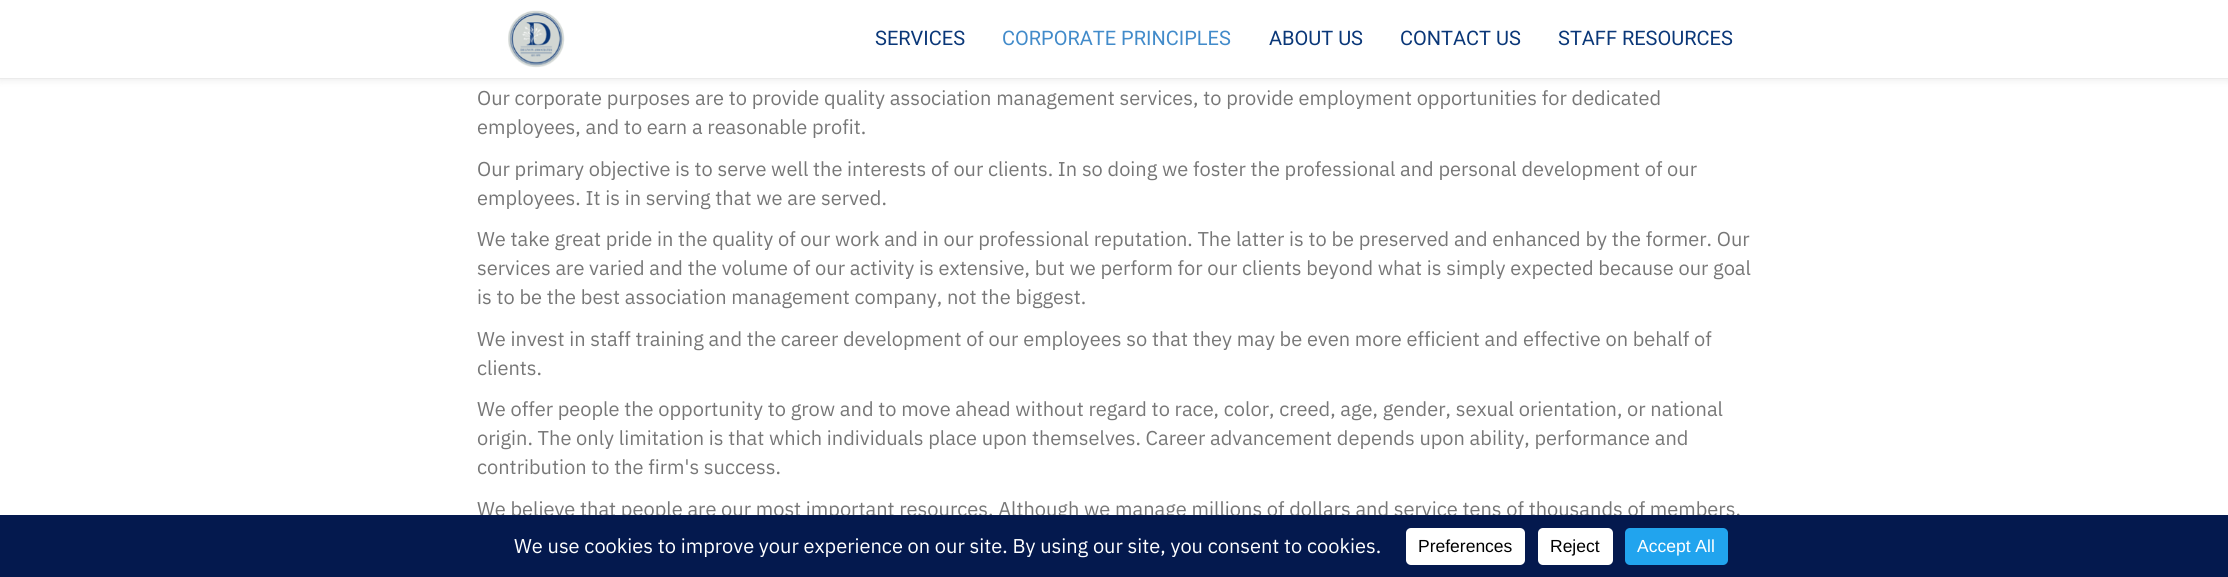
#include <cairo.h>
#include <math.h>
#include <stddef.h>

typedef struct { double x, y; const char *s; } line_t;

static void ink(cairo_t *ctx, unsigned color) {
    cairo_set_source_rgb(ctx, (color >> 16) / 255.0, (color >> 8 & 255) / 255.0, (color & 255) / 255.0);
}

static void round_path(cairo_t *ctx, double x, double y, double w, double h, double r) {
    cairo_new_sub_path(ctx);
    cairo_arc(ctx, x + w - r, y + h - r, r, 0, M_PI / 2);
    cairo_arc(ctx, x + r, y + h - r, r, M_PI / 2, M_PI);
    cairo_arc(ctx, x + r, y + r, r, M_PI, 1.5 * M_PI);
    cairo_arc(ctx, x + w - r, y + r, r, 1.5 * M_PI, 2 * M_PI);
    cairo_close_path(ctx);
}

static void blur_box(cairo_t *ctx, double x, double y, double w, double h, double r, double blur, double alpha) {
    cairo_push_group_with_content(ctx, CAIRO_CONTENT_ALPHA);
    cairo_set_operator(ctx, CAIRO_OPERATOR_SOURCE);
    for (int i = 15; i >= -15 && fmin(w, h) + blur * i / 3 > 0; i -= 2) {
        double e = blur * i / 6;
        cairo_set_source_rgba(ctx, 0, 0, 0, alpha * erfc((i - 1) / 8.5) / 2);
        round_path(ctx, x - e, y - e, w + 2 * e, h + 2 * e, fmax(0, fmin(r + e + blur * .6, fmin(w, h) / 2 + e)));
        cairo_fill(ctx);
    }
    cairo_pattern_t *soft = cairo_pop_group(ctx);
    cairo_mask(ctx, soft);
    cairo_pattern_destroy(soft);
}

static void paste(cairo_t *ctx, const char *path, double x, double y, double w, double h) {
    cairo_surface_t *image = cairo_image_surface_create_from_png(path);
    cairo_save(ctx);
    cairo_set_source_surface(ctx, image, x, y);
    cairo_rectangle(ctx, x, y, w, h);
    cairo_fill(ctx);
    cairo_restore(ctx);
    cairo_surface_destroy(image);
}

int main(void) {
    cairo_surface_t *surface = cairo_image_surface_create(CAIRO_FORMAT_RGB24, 2228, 577);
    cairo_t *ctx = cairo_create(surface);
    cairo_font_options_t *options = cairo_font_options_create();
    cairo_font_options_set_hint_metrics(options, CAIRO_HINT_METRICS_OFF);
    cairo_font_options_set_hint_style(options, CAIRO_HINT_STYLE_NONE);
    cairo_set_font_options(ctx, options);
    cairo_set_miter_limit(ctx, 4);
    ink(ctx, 0xFFFFFF);
    cairo_paint(ctx);
    ink(ctx, 0x000000);
    blur_box(ctx, 0, 0, 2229, 79, 0, 4.5, 0.1);
    ink(ctx, 0xFFFFFF);
    cairo_rectangle(ctx, 0, 0, 2228, 78);
    cairo_fill(ctx);
    ink(ctx, 0xEBEBEB);
    cairo_rectangle(ctx, 0, 78, 2228, 1);
    cairo_fill(ctx);
    paste(ctx, "media/1.png", 508, 10, 57, 58);
    cairo_select_font_face(ctx, "Roboto", CAIRO_FONT_SLANT_NORMAL, CAIRO_FONT_WEIGHT_NORMAL);
    cairo_set_font_size(ctx, 20);
    ink(ctx, 0x0A3778);
    cairo_move_to(ctx, 875, 45);
    cairo_show_text(ctx, "SERVICES");
    ink(ctx, 0x428BCA);
    cairo_move_to(ctx, 1002, 45);
    cairo_show_text(ctx, "CORPORATE PRINCIPLES");
    ink(ctx, 0x0A3778);
    {
        static const line_t items[] = {
            {1269, 45, "ABOUT US"},
            {1400, 45, "CONTACT US"},
            {1558, 45, "STAFF RESOURCES"},
        };
        for (size_t i = 0; i < sizeof items / sizeof *items; i++) {
            cairo_move_to(ctx, items[i].x, items[i].y);
            cairo_show_text(ctx, items[i].s);
        }
    }
    cairo_select_font_face(ctx, "IBM Plex Sans", CAIRO_FONT_SLANT_NORMAL, CAIRO_FONT_WEIGHT_NORMAL);
    ink(ctx, 0x777777);
    {
        static const line_t items[] = {
            {477, 105, "Our corporate purposes are to provide quality association management services, to provide employment opportunities for dedicated"},
            {477, 134, "employees, and to earn a reasonable profit."},
            {477, 176, "Our primary objective is to serve well the interests of our clients. In so doing we foster the professional and personal development of our"},
            {477, 205, "employees. It is in serving that we are served."},
            {477, 246, "We take great pride in the quality of our work and in our professional reputation. The latter is to be preserved and enhanced by the former. Our"},
            {477, 275, "services are varied and the volume of our activity is extensive, but we perform for our clients beyond what is simply expected because our goal"},
            {477, 304, "is to be the best association management company, not the biggest."},
            {477, 346, "We invest in staff training and the career development of our employees so that they may be even more efficient and effective on behalf of"},
            {477, 375, "clients."},
            {477, 416, "We offer people the opportunity to grow and to move ahead without regard to race, color, creed, age, gender, sexual orientation, or national"},
            {477, 445, "origin. The only limitation is that which individuals place upon themselves. Career advancement depends upon ability, performance and"},
            {477, 474, "contribution to the firm's success."},
            {477, 516, "We believe that people are our most important resources. Although we manage millions of dollars and service tens of thousands of members,"},
        };
        for (size_t i = 0; i < sizeof items / sizeof *items; i++) {
            cairo_move_to(ctx, items[i].x, items[i].y);
            cairo_show_text(ctx, items[i].s);
        }
    }
    ink(ctx, 0x04194E);
    cairo_rectangle(ctx, 0, 515, 2228, 62);
    cairo_fill(ctx);
    ink(ctx, 0xFFFFFF);
    cairo_move_to(ctx, 514, 553);
    cairo_show_text(ctx, "We use cookies to improve your experience on our site. By using our site, you consent to cookies.");
    round_path(ctx, 1406, 528, 119, 37, 5);
    cairo_fill(ctx);
    cairo_select_font_face(ctx, "Liberation Sans", CAIRO_FONT_SLANT_NORMAL, CAIRO_FONT_WEIGHT_NORMAL);
    cairo_set_font_size(ctx, 17.5);
    ink(ctx, 0x000000);
    cairo_move_to(ctx, 1418, 552);
    cairo_show_text(ctx, "Preferences");
    ink(ctx, 0xFFFFFF);
    round_path(ctx, 1538, 528, 75, 37, 5);
    cairo_fill(ctx);
    ink(ctx, 0x000000);
    cairo_move_to(ctx, 1550, 552);
    cairo_show_text(ctx, "Reject");
    ink(ctx, 0x21A4EE);
    round_path(ctx, 1625, 528, 103, 37, 5);
    cairo_fill(ctx);
    ink(ctx, 0xFFFFFF);
    cairo_move_to(ctx, 1637, 552);
    cairo_show_text(ctx, "Accept All");
    cairo_surface_write_to_png(surface, "image.png");
    cairo_font_options_destroy(options);
    cairo_destroy(ctx);
    cairo_surface_destroy(surface);
    return 0;
}
